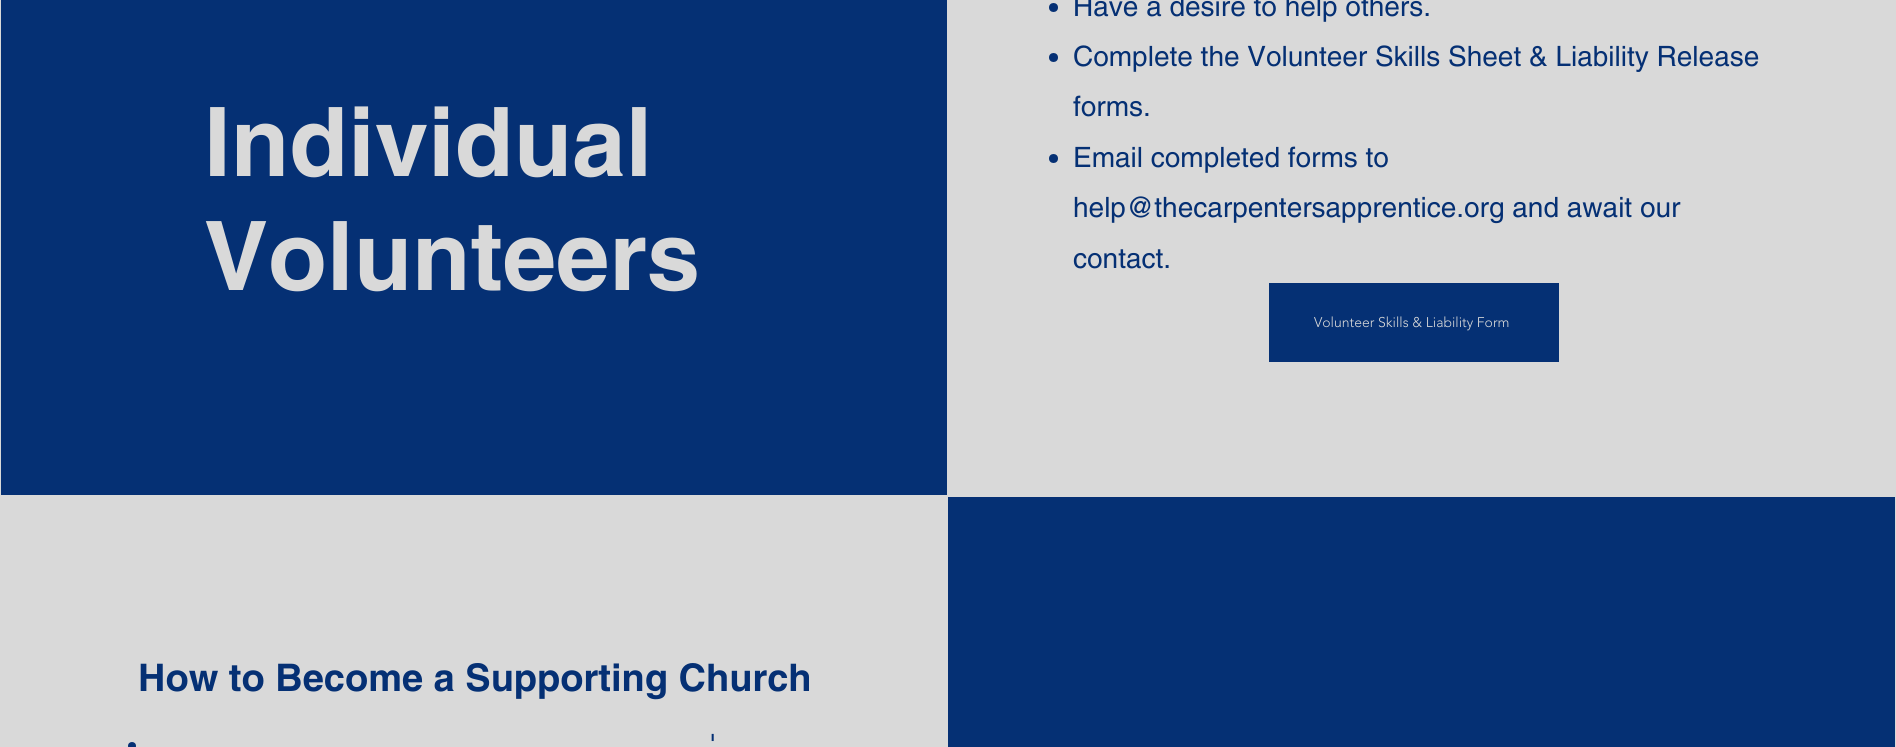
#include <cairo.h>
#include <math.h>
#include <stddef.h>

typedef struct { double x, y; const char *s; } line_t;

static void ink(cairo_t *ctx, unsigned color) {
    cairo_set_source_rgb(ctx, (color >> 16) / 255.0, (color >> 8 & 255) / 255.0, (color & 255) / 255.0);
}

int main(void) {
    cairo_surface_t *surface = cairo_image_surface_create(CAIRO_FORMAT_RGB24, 1896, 747);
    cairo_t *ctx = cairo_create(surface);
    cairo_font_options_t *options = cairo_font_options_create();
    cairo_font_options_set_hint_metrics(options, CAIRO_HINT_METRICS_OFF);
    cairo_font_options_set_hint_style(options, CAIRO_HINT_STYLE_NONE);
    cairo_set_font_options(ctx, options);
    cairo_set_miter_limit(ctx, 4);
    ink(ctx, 0xD9D9D9);
    cairo_paint(ctx);
    ink(ctx, 0x053074);
    cairo_rectangle(ctx, 1, 0, 946, 495);
    cairo_fill(ctx);
    cairo_select_font_face(ctx, "helvetica", CAIRO_FONT_SLANT_NORMAL, CAIRO_FONT_WEIGHT_BOLD);
    cairo_set_font_size(ctx, 96);
    ink(ctx, 0xD9D9D9);
    cairo_move_to(ctx, 204, 176);
    cairo_show_text(ctx, "Individual");
    cairo_move_to(ctx, 204, 290);
    cairo_show_text(ctx, "Volunteers");
    ink(ctx, 0x053074);
    cairo_new_path(ctx);
    cairo_arc(ctx, 1053.5, 7.5, 4.5, 0, 2 * M_PI);
    cairo_fill(ctx);
    cairo_select_font_face(ctx, "helvetica", CAIRO_FONT_SLANT_NORMAL, CAIRO_FONT_WEIGHT_NORMAL);
    cairo_set_font_size(ctx, 28);
    cairo_move_to(ctx, 1073, 16);
    cairo_show_text(ctx, "Have a desire to help others.");
    cairo_new_path(ctx);
    cairo_arc(ctx, 1053.5, 57.5, 4.5, 0, 2 * M_PI);
    cairo_fill(ctx);
    cairo_move_to(ctx, 1073, 66);
    cairo_show_text(ctx, "Complete the Volunteer Skills Sheet & Liability Release");
    cairo_move_to(ctx, 1073, 116);
    cairo_show_text(ctx, "forms.");
    cairo_new_path(ctx);
    cairo_arc(ctx, 1053.5, 158.5, 4.5, 0, 2 * M_PI);
    cairo_fill(ctx);
    {
        static const line_t items[] = {
            {1073, 167, "Email completed forms to"},
            {1073, 217, "help@thecarpentersapprentice.org and await our"},
            {1073, 268, "contact."},
        };
        for (size_t i = 0; i < sizeof items / sizeof *items; i++) {
            cairo_move_to(ctx, items[i].x, items[i].y);
            cairo_show_text(ctx, items[i].s);
        }
    }
    cairo_rectangle(ctx, 1269, 283, 290, 79);
    cairo_fill(ctx);
    cairo_select_font_face(ctx, "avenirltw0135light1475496 Light", CAIRO_FONT_SLANT_NORMAL, CAIRO_FONT_WEIGHT_NORMAL);
    cairo_set_font_size(ctx, 14);
    ink(ctx, 0xD9D9D9);
    cairo_move_to(ctx, 1314, 327);
    cairo_show_text(ctx, "Volunteer Skills & Liability Form");
    cairo_select_font_face(ctx, "helvetica", CAIRO_FONT_SLANT_NORMAL, CAIRO_FONT_WEIGHT_BOLD);
    cairo_set_font_size(ctx, 38);
    ink(ctx, 0x053074);
    cairo_move_to(ctx, 138, 691);
    cairo_show_text(ctx, "How to Become a Supporting Church");
    cairo_select_font_face(ctx, "helvetica", CAIRO_FONT_SLANT_NORMAL, CAIRO_FONT_WEIGHT_NORMAL);
    cairo_set_font_size(ctx, 28);
    cairo_move_to(ctx, 710, 754);
    cairo_show_text(ctx, "'");
    cairo_new_path(ctx);
    cairo_arc(ctx, 132, 746, 4, 0, 2 * M_PI);
    cairo_fill(ctx);
    cairo_rectangle(ctx, 948, 497, 947, 250);
    cairo_fill(ctx);
    cairo_surface_write_to_png(surface, "image.png");
    cairo_font_options_destroy(options);
    cairo_destroy(ctx);
    cairo_surface_destroy(surface);
    return 0;
}
